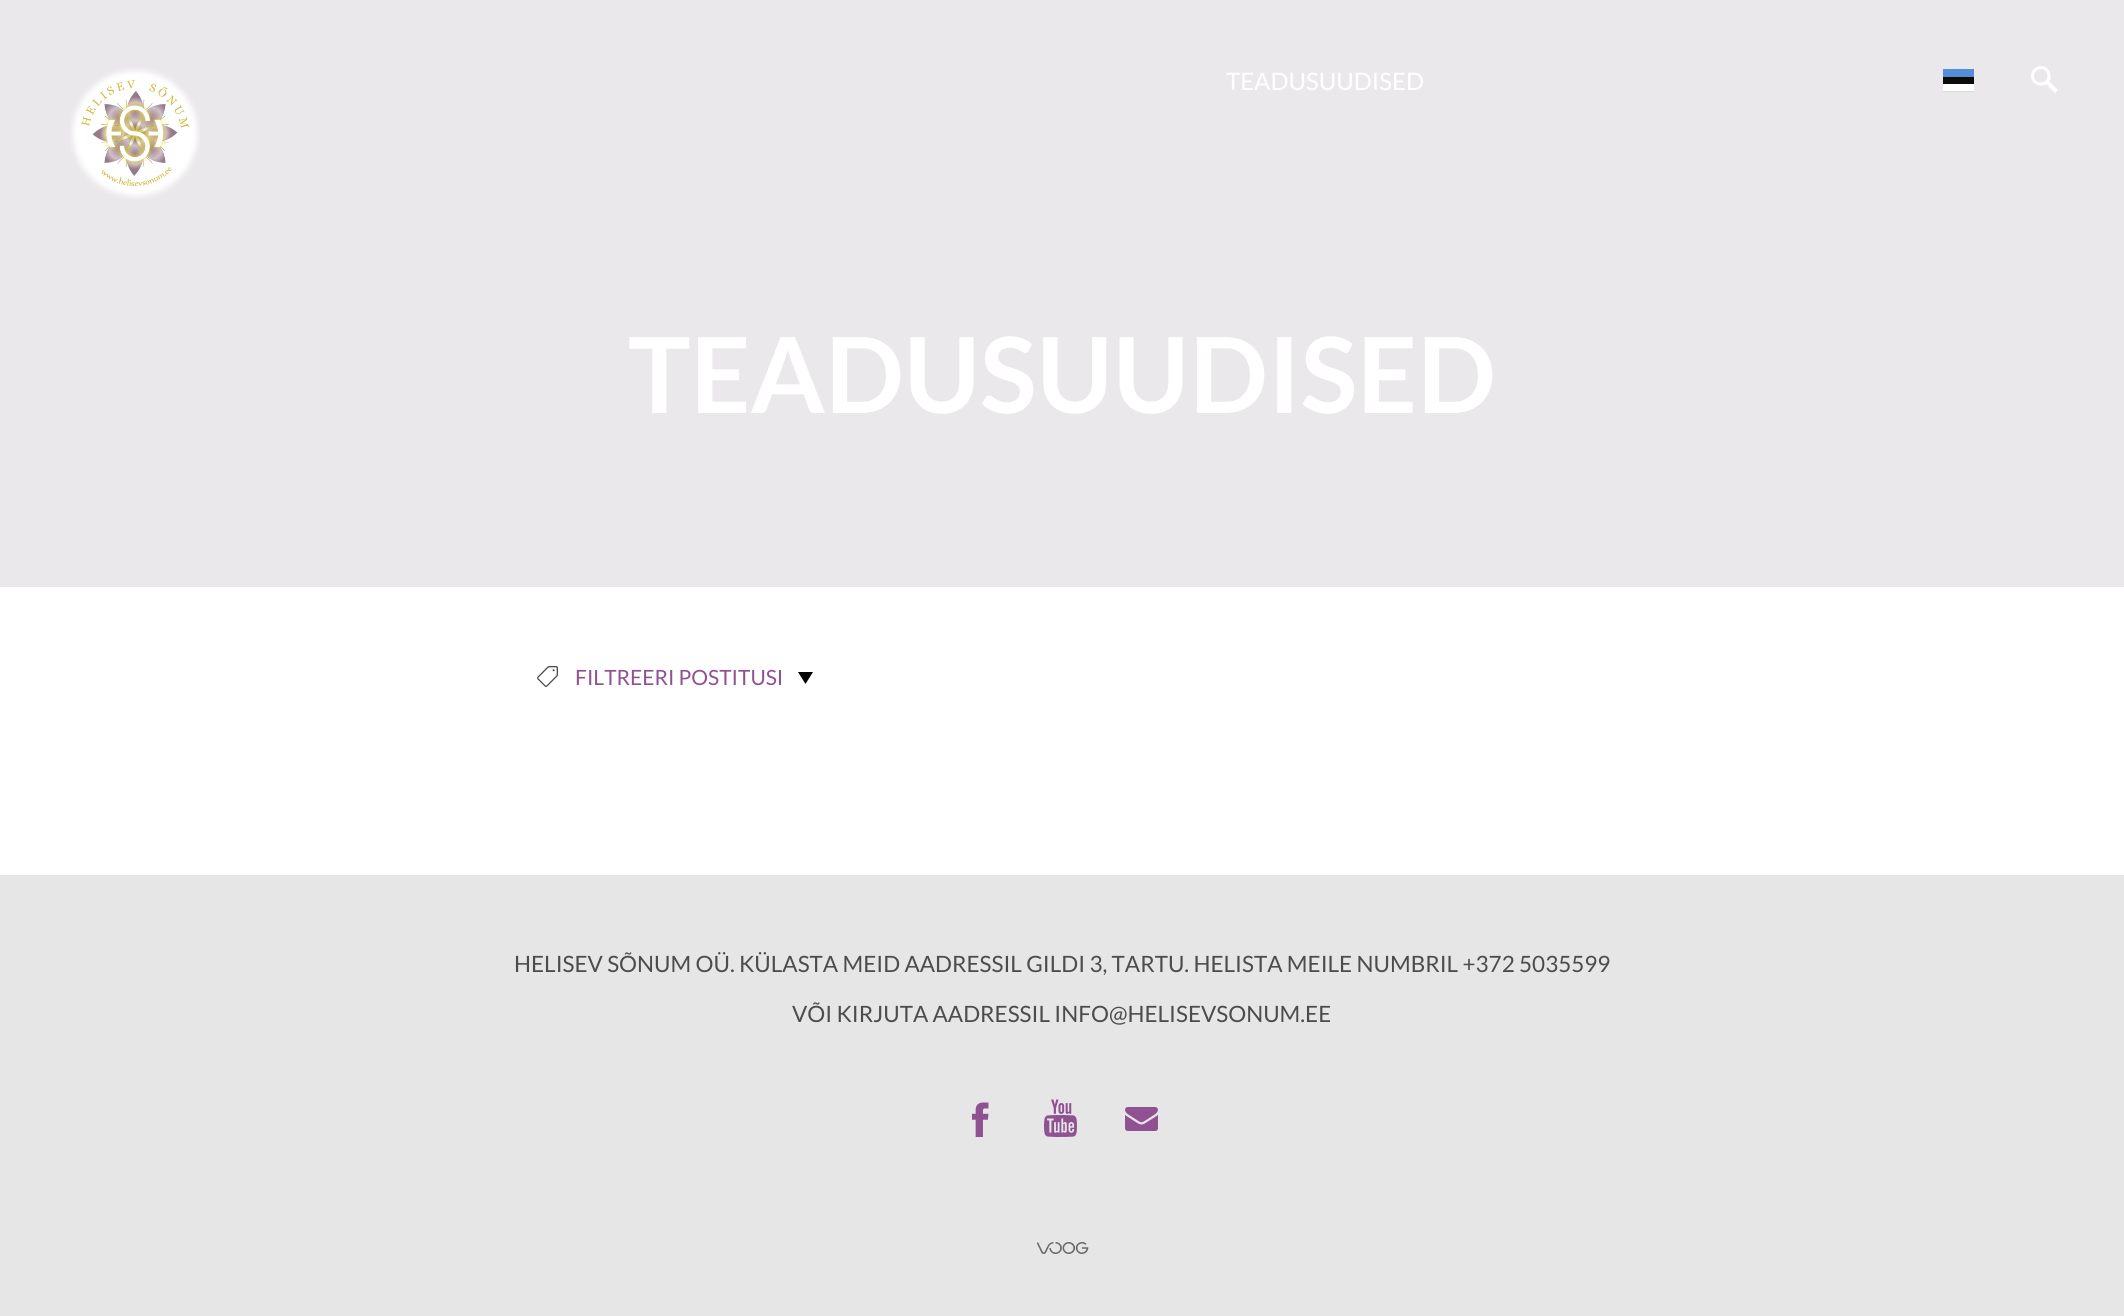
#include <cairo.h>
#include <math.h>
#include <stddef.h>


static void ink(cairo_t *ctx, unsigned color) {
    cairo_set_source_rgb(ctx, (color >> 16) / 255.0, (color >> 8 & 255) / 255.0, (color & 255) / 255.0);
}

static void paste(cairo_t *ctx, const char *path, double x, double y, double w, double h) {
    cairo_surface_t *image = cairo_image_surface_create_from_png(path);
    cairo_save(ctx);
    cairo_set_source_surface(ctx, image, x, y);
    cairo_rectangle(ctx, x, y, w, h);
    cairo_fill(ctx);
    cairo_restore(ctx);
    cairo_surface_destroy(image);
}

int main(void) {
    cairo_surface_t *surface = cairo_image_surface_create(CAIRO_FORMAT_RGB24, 2124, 1316);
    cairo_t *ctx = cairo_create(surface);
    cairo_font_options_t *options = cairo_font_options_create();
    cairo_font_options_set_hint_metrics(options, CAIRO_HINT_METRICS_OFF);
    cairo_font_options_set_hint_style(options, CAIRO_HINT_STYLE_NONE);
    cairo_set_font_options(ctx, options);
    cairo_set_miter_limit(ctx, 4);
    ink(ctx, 0xFFFFFF);
    cairo_paint(ctx);
    ink(ctx, 0xEBE8EB);
    cairo_rectangle(ctx, 0, 0, 2124, 587);
    cairo_fill(ctx);
    paste(ctx, "media/1.png", 70, 68, 130, 131);
    cairo_select_font_face(ctx, "Lato", CAIRO_FONT_SLANT_NORMAL, CAIRO_FONT_WEIGHT_NORMAL);
    cairo_set_font_size(ctx, 24);
    ink(ctx, 0xFFFFFF);
    cairo_move_to(ctx, 1226, 90);
    cairo_show_text(ctx, "TEADUSUUDISED");
    paste(ctx, "media/2.png", 1943, 69, 31, 23);
    paste(ctx, "media/3.png", 2031, 66, 27, 27);
    cairo_select_font_face(ctx, "Lato", CAIRO_FONT_SLANT_NORMAL, CAIRO_FONT_WEIGHT_BOLD);
    cairo_set_font_size(ctx, 105);
    cairo_move_to(ctx, 628, 413);
    cairo_show_text(ctx, "TEADUSUUDISED");
    paste(ctx, "media/4.png", 537, 666, 21, 21);
    cairo_select_font_face(ctx, "Lato", CAIRO_FONT_SLANT_NORMAL, CAIRO_FONT_WEIGHT_NORMAL);
    cairo_set_font_size(ctx, 21);
    ink(ctx, 0x905192);
    cairo_move_to(ctx, 575, 685);
    cairo_show_text(ctx, "FILTREERI POSTITUSI");
    ink(ctx, 0x000000);
    cairo_new_path(ctx);
    cairo_move_to(ctx, 798, 672);
    cairo_line_to(ctx, 813, 672);
    cairo_line_to(ctx, 805.5, 684);
    cairo_close_path(ctx);
    cairo_fill(ctx);
    ink(ctx, 0xE6E6E6);
    cairo_rectangle(ctx, 0, 875, 2124, 441);
    cairo_fill(ctx);
    cairo_set_font_size(ctx, 22.5);
    ink(ctx, 0x4C4C4C);
    cairo_move_to(ctx, 514, 972);
    cairo_show_text(ctx, "HELISEV SÕNUM OÜ. KÜLASTA MEID AADRESSIL GILDI 3, TARTU. HELISTA MEILE NUMBRIL +372 5035599");
    cairo_move_to(ctx, 792, 1022);
    cairo_show_text(ctx, "VÕI KIRJUTA AADRESSIL INFO@HELISEVSONUM.EE");
    paste(ctx, "media/5.png", 972, 1102, 17, 35);
    paste(ctx, "media/6.png", 1044, 1099, 33, 38);
    paste(ctx, "media/7.png", 1125, 1107, 33, 24);
    paste(ctx, "media/8.png", 1037, 1242, 52, 12);
    cairo_surface_write_to_png(surface, "image.png");
    cairo_font_options_destroy(options);
    cairo_destroy(ctx);
    cairo_surface_destroy(surface);
    return 0;
}
